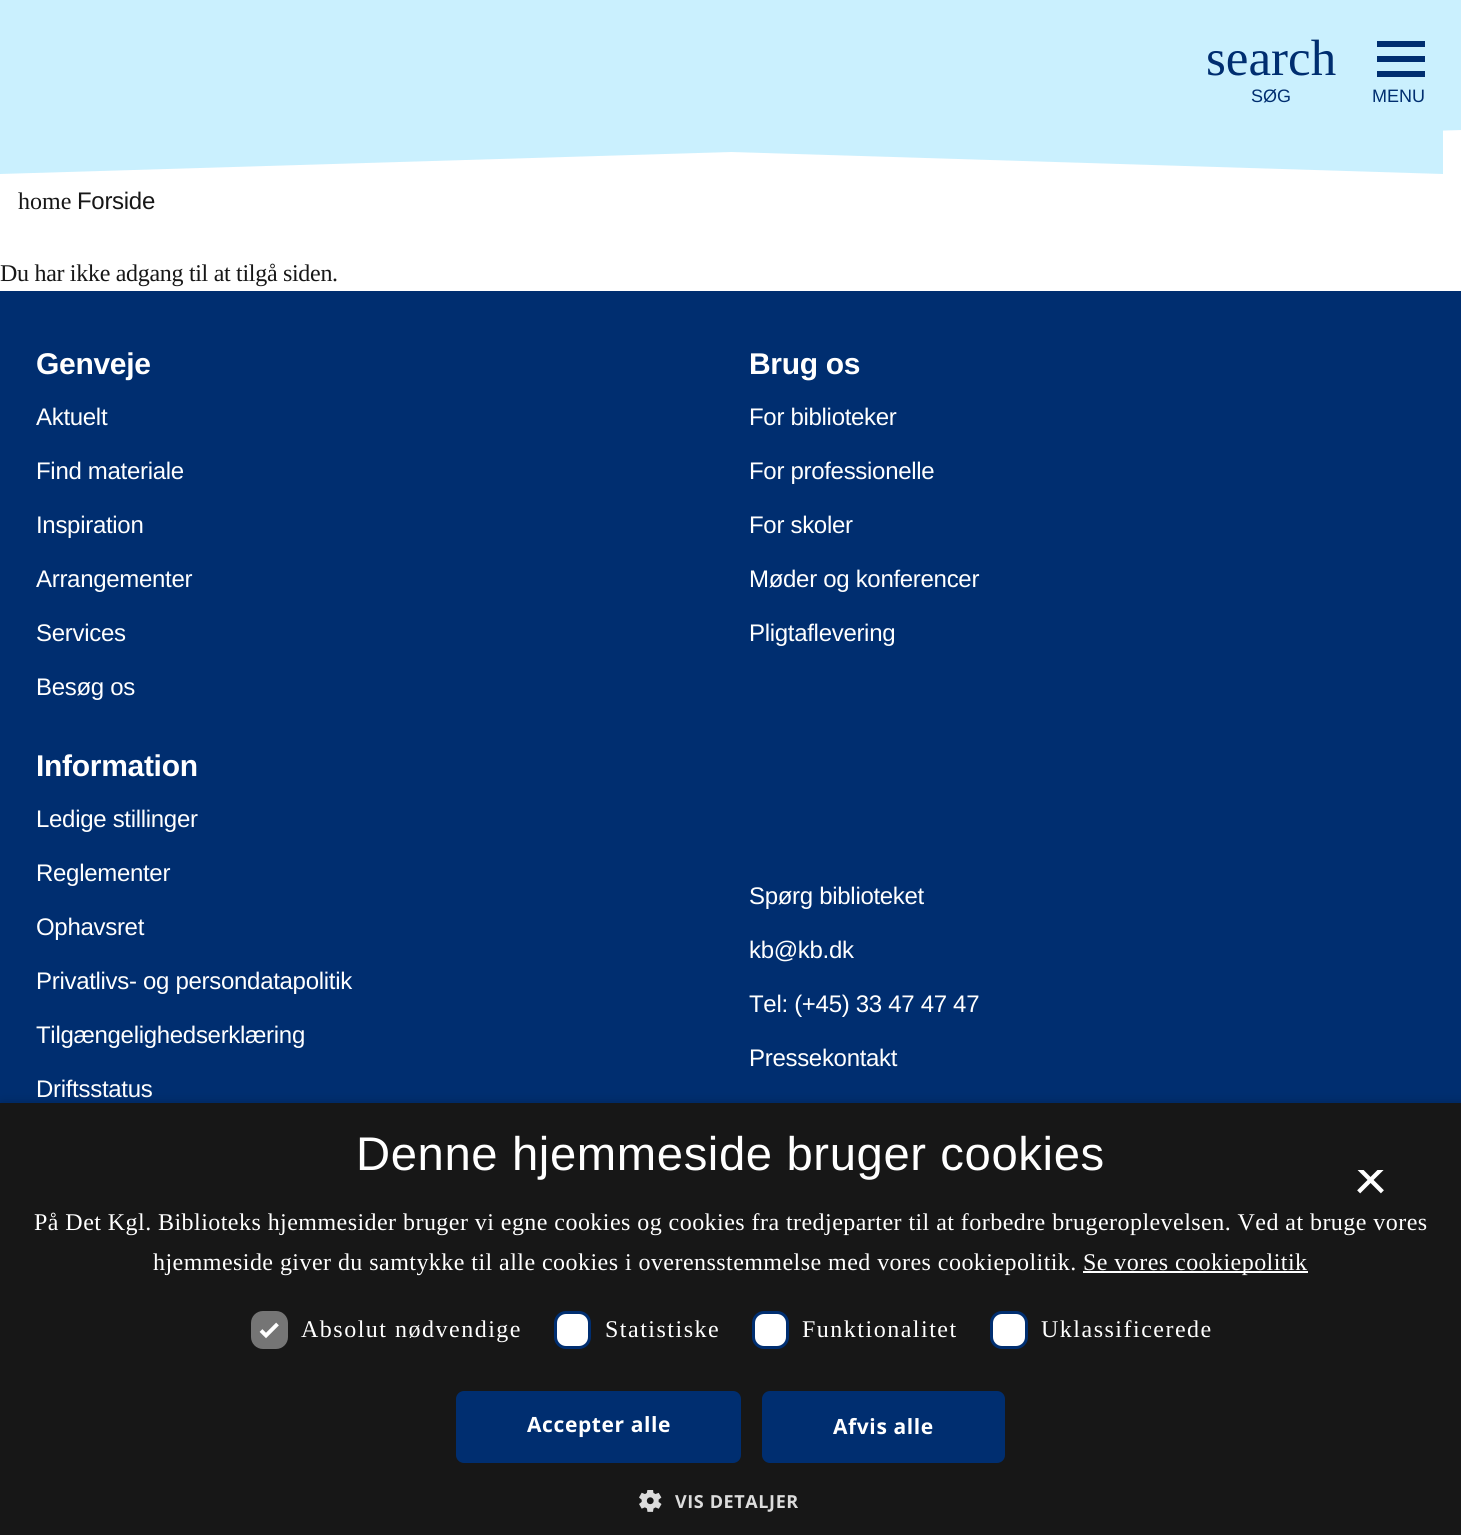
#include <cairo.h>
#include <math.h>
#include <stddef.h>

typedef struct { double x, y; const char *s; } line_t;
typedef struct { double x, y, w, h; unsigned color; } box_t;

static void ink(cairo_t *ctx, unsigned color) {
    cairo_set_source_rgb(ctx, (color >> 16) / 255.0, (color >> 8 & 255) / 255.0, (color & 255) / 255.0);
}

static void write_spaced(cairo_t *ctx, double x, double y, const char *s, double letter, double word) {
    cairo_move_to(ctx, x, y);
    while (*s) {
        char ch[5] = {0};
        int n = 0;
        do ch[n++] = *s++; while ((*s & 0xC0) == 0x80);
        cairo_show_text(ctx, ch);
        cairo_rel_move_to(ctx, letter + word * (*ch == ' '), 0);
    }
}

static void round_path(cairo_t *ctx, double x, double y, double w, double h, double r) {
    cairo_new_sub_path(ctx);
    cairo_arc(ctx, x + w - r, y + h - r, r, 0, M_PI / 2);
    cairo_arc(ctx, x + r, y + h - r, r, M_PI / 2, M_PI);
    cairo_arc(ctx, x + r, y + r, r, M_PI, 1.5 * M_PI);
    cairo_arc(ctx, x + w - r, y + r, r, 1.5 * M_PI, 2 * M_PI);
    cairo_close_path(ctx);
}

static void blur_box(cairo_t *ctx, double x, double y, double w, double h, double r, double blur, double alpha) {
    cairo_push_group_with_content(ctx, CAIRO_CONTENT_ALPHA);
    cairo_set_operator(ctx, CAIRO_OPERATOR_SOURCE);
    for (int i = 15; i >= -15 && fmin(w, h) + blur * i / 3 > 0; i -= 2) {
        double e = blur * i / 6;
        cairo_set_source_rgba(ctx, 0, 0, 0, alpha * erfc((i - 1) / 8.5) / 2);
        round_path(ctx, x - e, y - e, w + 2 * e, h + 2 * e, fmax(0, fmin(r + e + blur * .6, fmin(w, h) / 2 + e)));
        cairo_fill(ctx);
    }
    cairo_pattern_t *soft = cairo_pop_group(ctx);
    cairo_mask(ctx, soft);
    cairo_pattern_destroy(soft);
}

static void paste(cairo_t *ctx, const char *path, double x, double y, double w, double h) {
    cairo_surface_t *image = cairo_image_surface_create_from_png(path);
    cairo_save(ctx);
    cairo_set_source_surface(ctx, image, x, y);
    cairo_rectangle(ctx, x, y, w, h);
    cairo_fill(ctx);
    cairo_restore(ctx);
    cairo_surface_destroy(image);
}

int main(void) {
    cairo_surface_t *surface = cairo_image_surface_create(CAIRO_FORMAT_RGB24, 1461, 1535);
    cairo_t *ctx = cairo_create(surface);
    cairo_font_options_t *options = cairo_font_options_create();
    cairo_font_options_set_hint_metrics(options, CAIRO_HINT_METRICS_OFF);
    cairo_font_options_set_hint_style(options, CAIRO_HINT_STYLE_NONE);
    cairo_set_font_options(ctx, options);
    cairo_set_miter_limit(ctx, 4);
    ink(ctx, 0xFFFFFF);
    cairo_paint(ctx);
    ink(ctx, 0xCAF0FE);
    cairo_rectangle(ctx, 0, 0, 1461, 128);
    cairo_fill(ctx);
    cairo_select_font_face(ctx, "Liberation Serif", CAIRO_FONT_SLANT_NORMAL, CAIRO_FONT_WEIGHT_NORMAL);
    cairo_set_font_size(ctx, 51);
    ink(ctx, 0x002E70);
    cairo_move_to(ctx, 1206, 75);
    cairo_show_text(ctx, "search");
    cairo_select_font_face(ctx, "Liberation Sans", CAIRO_FONT_SLANT_NORMAL, CAIRO_FONT_WEIGHT_NORMAL);
    cairo_set_font_size(ctx, 18);
    cairo_move_to(ctx, 1251, 102);
    cairo_show_text(ctx, "SØG");
    {
        static const box_t items[] = {
            {1377, 41, 48, 6, 0x002E70},
            {1377, 56, 48, 6, 0x002E70},
            {1377, 71, 48, 6, 0x002E70},
        };
        for (size_t i = 0; i < sizeof items / sizeof *items; i++) {
            ink(ctx, items[i].color);
            cairo_rectangle(ctx, items[i].x, items[i].y, items[i].w, items[i].h);
            cairo_fill(ctx);
        }
    }
    cairo_move_to(ctx, 1372, 102);
    cairo_show_text(ctx, "MENU");
    ink(ctx, 0xCAF0FE);
    cairo_new_path(ctx);
    cairo_move_to(ctx, 1443, 174);
    cairo_line_to(ctx, 1443, 130);
    cairo_line_to(ctx, 18, 130);
    cairo_close_path(ctx);
    cairo_fill(ctx);
    cairo_new_path(ctx);
    cairo_move_to(ctx, 0, 128);
    cairo_line_to(ctx, 0, 174);
    cairo_line_to(ctx, 1461, 130);
    cairo_line_to(ctx, 1461, 128);
    cairo_close_path(ctx);
    cairo_fill(ctx);
    cairo_select_font_face(ctx, "Liberation Serif", CAIRO_FONT_SLANT_NORMAL, CAIRO_FONT_WEIGHT_NORMAL);
    cairo_set_font_size(ctx, 24);
    ink(ctx, 0x171717);
    cairo_move_to(ctx, 18, 209);
    cairo_show_text(ctx, "home");
    cairo_select_font_face(ctx, "Liberation Sans", CAIRO_FONT_SLANT_NORMAL, CAIRO_FONT_WEIGHT_NORMAL);
    write_spaced(ctx, 77, 209, "Forside", -0.3, 0);
    cairo_select_font_face(ctx, "Liberation Serif", CAIRO_FONT_SLANT_NORMAL, CAIRO_FONT_WEIGHT_NORMAL);
    write_spaced(ctx, 0, 281, "Du har ikke adgang til at tilgå siden.", -0.3, 0);
    ink(ctx, 0x002E70);
    cairo_rectangle(ctx, 0, 291, 1461, 812);
    cairo_fill(ctx);
    cairo_select_font_face(ctx, "Liberation Sans", CAIRO_FONT_SLANT_NORMAL, CAIRO_FONT_WEIGHT_BOLD);
    cairo_set_font_size(ctx, 30);
    ink(ctx, 0xFFFFFF);
    write_spaced(ctx, 36, 374, "Genveje", -0.3, 0);
    cairo_select_font_face(ctx, "Liberation Sans", CAIRO_FONT_SLANT_NORMAL, CAIRO_FONT_WEIGHT_NORMAL);
    cairo_set_font_size(ctx, 24);
    {
        static const line_t items[] = {
            {36, 425, "Aktuelt"},
            {36, 479, "Find materiale"},
            {36, 533, "Inspiration"},
            {36, 587, "Arrangementer"},
            {36, 641, "Services"},
            {36, 695, "Besøg os"},
        };
        for (size_t i = 0; i < sizeof items / sizeof *items; i++) {
            write_spaced(ctx, items[i].x, items[i].y, items[i].s, -0.3, 0);
        }
    }
    cairo_select_font_face(ctx, "Liberation Sans", CAIRO_FONT_SLANT_NORMAL, CAIRO_FONT_WEIGHT_BOLD);
    cairo_set_font_size(ctx, 30);
    write_spaced(ctx, 749, 374, "Brug os", -0.3, 0);
    cairo_select_font_face(ctx, "Liberation Sans", CAIRO_FONT_SLANT_NORMAL, CAIRO_FONT_WEIGHT_NORMAL);
    cairo_set_font_size(ctx, 24);
    {
        static const line_t items[] = {
            {749, 425, "For biblioteker"},
            {749, 479, "For professionelle"},
            {749, 533, "For skoler"},
            {749, 587, "Møder og konferencer"},
            {749, 641, "Pligtaflevering"},
        };
        for (size_t i = 0; i < sizeof items / sizeof *items; i++) {
            write_spaced(ctx, items[i].x, items[i].y, items[i].s, -0.3, 0);
        }
    }
    cairo_select_font_face(ctx, "Liberation Sans", CAIRO_FONT_SLANT_NORMAL, CAIRO_FONT_WEIGHT_BOLD);
    cairo_set_font_size(ctx, 30);
    write_spaced(ctx, 36, 776, "Information", -0.3, 0);
    cairo_select_font_face(ctx, "Liberation Sans", CAIRO_FONT_SLANT_NORMAL, CAIRO_FONT_WEIGHT_NORMAL);
    cairo_set_font_size(ctx, 24);
    {
        static const line_t items[] = {
            {36, 827, "Ledige stillinger"},
            {36, 881, "Reglementer"},
            {36, 935, "Ophavsret"},
            {36, 989, "Privatlivs- og persondatapolitik"},
            {36, 1043, "Tilgængelighedserklæring"},
            {36, 1097, "Driftsstatus"},
            {749, 904, "Spørg biblioteket"},
            {749, 958, "kb@kb.dk"},
            {749, 1012, "Tel: (+45) 33 47 47 47"},
            {749, 1066, "Pressekontakt"},
        };
        for (size_t i = 0; i < sizeof items / sizeof *items; i++) {
            write_spaced(ctx, items[i].x, items[i].y, items[i].s, -0.3, 0);
        }
    }
    ink(ctx, 0x000000);
    blur_box(ctx, 2, 1106, 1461, 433, 0, 6, 0.35);
    ink(ctx, 0x171717);
    cairo_rectangle(ctx, 0, 1103, 1461, 432);
    cairo_fill(ctx);
    cairo_set_font_size(ctx, 47.25);
    ink(ctx, 0xFFFFFF);
    write_spaced(ctx, 356, 1170, "Denne hjemmeside bruger cookies", 0.6, 0);
    cairo_save(ctx);
    cairo_rectangle(ctx, 1349, 1170, 45, 45);
    cairo_clip(ctx);
    cairo_set_font_size(ctx, 60);
    cairo_move_to(ctx, 1353, 1200);
    cairo_show_text(ctx, "×");
    cairo_restore(ctx);
    cairo_select_font_face(ctx, "Liberation Serif", CAIRO_FONT_SLANT_NORMAL, CAIRO_FONT_WEIGHT_NORMAL);
    cairo_set_font_size(ctx, 24);
    write_spaced(ctx, 34, 1230, "På Det Kgl. Biblioteks hjemmesider bruger vi egne cookies og cookies fra tredjeparter til at forbedre brugeroplevelsen. Ved at bruge vores", 0.45, 0);
    write_spaced(ctx, 153, 1270, "hjemmeside giver du samtykke til alle cookies i overensstemmelse med vores cookiepolitik.", 0.45, 0);
    cairo_rectangle(ctx, 1083, 1271, 225, 2);
    cairo_fill(ctx);
    write_spaced(ctx, 1083, 1270, "Se vores cookiepolitik", 0.45, 0);
    ink(ctx, 0x757575);
    round_path(ctx, 251, 1311, 37, 38, 12);
    cairo_fill(ctx);
    cairo_new_path(ctx);
    cairo_move_to(ctx, 261, 1330.5);
    cairo_line_to(ctx, 266, 1335.5);
    cairo_line_to(ctx, 277.5, 1324);
    ink(ctx, 0xFFFFFF);
    cairo_set_line_width(ctx, 3.9);
    cairo_stroke(ctx);
    write_spaced(ctx, 301, 1337, "Absolut nødvendige", 1.5, 0);
    round_path(ctx, 555.5, 1312.5, 34, 35, 10.5);
    cairo_fill_preserve(ctx);
    ink(ctx, 0x002E70);
    cairo_set_line_width(ctx, 3);
    cairo_stroke(ctx);
    ink(ctx, 0xFFFFFF);
    write_spaced(ctx, 605, 1337, "Statistiske", 1.5, 0);
    round_path(ctx, 753.5, 1312.5, 34, 35, 10.5);
    cairo_fill_preserve(ctx);
    ink(ctx, 0x002E70);
    cairo_stroke(ctx);
    ink(ctx, 0xFFFFFF);
    write_spaced(ctx, 802, 1337, "Funktionalitet", 1.5, 0);
    round_path(ctx, 991.5, 1312.5, 35, 35, 10.5);
    cairo_fill_preserve(ctx);
    ink(ctx, 0x002E70);
    cairo_stroke(ctx);
    ink(ctx, 0xFFFFFF);
    write_spaced(ctx, 1041, 1337, "Uklassificerede", 1.5, 0);
    ink(ctx, 0x002E70);
    round_path(ctx, 457, 1392, 283, 70, 7);
    cairo_fill_preserve(ctx);
    cairo_set_line_width(ctx, 2);
    cairo_stroke(ctx);
    cairo_select_font_face(ctx, "Open Sans", CAIRO_FONT_SLANT_NORMAL, CAIRO_FONT_WEIGHT_BOLD);
    cairo_set_font_size(ctx, 21);
    ink(ctx, 0xFFFFFF);
    write_spaced(ctx, 527, 1432, "Accepter alle", 0.6, 0);
    ink(ctx, 0x002E70);
    round_path(ctx, 763, 1392, 241, 70, 7);
    cairo_fill_preserve(ctx);
    cairo_stroke(ctx);
    ink(ctx, 0xFFFFFF);
    write_spaced(ctx, 833, 1434, "Afvis alle", 0.6, 0);
    paste(ctx, "media/1.png", 639, 1490, 23, 22);
    cairo_set_font_size(ctx, 18);
    ink(ctx, 0xDCDCDC);
    write_spaced(ctx, 675, 1508, "VIS DETALJER", 0.6, 0);
    cairo_surface_write_to_png(surface, "image.png");
    cairo_font_options_destroy(options);
    cairo_destroy(ctx);
    cairo_surface_destroy(surface);
    return 0;
}
